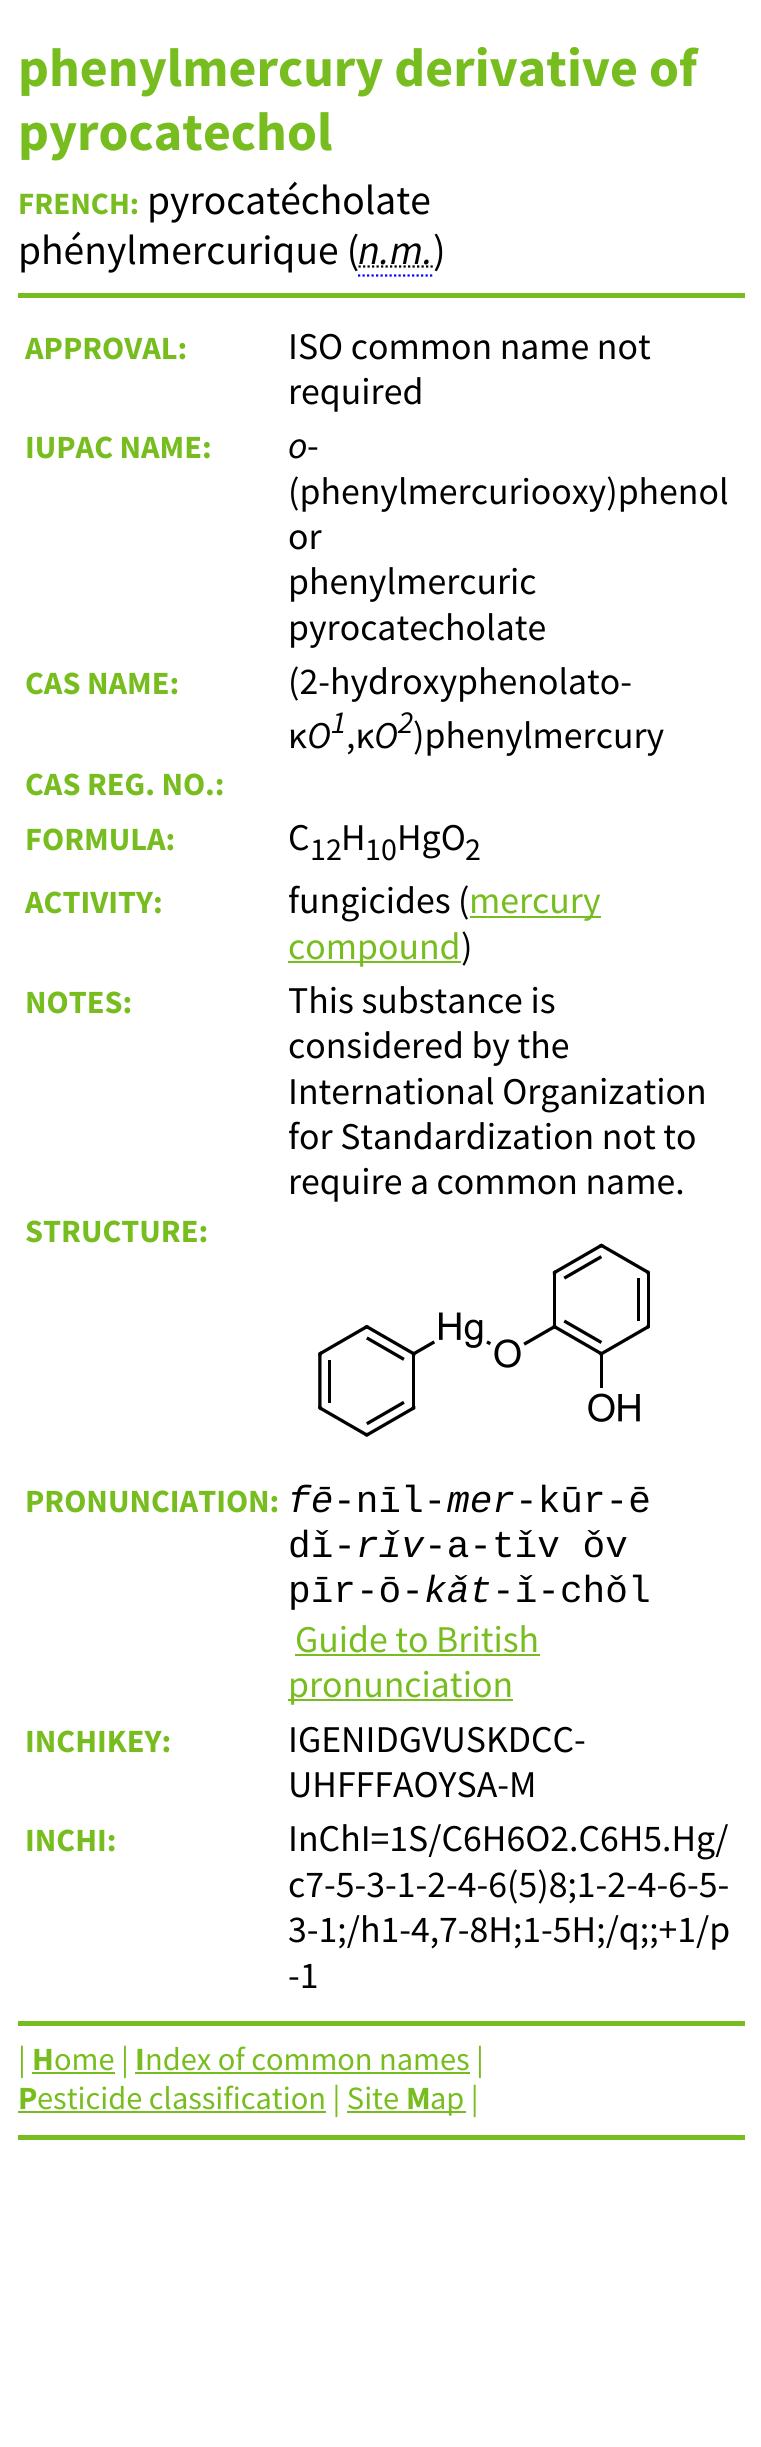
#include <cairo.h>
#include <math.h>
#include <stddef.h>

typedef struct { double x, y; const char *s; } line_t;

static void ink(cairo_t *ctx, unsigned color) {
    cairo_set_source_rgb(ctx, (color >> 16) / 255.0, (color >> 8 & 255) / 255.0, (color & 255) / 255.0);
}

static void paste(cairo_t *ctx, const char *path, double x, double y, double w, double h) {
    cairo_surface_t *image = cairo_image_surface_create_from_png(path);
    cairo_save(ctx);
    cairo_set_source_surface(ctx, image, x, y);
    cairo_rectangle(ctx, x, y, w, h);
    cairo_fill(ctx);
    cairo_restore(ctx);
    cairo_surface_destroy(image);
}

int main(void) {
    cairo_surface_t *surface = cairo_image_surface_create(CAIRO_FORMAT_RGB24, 761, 2447);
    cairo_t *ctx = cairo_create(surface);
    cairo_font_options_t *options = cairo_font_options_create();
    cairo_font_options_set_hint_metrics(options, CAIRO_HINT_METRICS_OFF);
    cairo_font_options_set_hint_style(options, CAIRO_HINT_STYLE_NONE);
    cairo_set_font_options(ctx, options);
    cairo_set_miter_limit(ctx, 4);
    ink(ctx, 0xFFFFFF);
    cairo_paint(ctx);
    cairo_select_font_face(ctx, "Source Sans Pro", CAIRO_FONT_SLANT_NORMAL, CAIRO_FONT_WEIGHT_BOLD);
    cairo_set_font_size(ctx, 54);
    ink(ctx, 0x78BD1F);
    cairo_move_to(ctx, 18, 86);
    cairo_show_text(ctx, "phenylmercury derivative of");
    cairo_move_to(ctx, 18, 150);
    cairo_show_text(ctx, "pyrocatechol");
    cairo_set_font_size(ctx, 31);
    cairo_move_to(ctx, 18, 214);
    cairo_show_text(ctx, "FRENCH:");
    cairo_select_font_face(ctx, "Source Sans Pro", CAIRO_FONT_SLANT_NORMAL, CAIRO_FONT_WEIGHT_NORMAL);
    cairo_set_font_size(ctx, 41.5);
    ink(ctx, 0x000000);
    cairo_move_to(ctx, 147, 214);
    cairo_show_text(ctx, "pyrocatécholate");
    cairo_move_to(ctx, 18, 264);
    cairo_show_text(ctx, "phénylmercurique (");
    cairo_select_font_face(ctx, "Source Sans Pro", CAIRO_FONT_SLANT_ITALIC, CAIRO_FONT_WEIGHT_NORMAL);
    cairo_move_to(ctx, 358, 264);
    cairo_show_text(ctx, "n.m.");
    cairo_new_path(ctx);
    cairo_move_to(ctx, 358, 275.5);
    cairo_line_to(ctx, 434, 275.5);
    ink(ctx, 0x0000FF);
    cairo_set_line_width(ctx, 2.2);
    cairo_set_dash(ctx, (double[]){2.25, 2.25}, 2, 0);
    cairo_stroke(ctx);
    cairo_new_path(ctx);
    cairo_move_to(ctx, 358.5, 266.5);
    cairo_line_to(ctx, 433.5, 266.5);
    ink(ctx, 0x000000);
    cairo_stroke(ctx);
    cairo_select_font_face(ctx, "Source Sans Pro", CAIRO_FONT_SLANT_NORMAL, CAIRO_FONT_WEIGHT_NORMAL);
    cairo_move_to(ctx, 433, 264);
    cairo_show_text(ctx, ")");
    ink(ctx, 0x78BD1F);
    cairo_rectangle(ctx, 18, 293, 727, 5);
    cairo_fill(ctx);
    cairo_select_font_face(ctx, "Source Sans Pro", CAIRO_FONT_SLANT_NORMAL, CAIRO_FONT_WEIGHT_BOLD);
    cairo_set_font_size(ctx, 32.4);
    cairo_move_to(ctx, 25, 359);
    cairo_show_text(ctx, "APPROVAL:");
    cairo_select_font_face(ctx, "Source Sans Pro", CAIRO_FONT_SLANT_NORMAL, CAIRO_FONT_WEIGHT_NORMAL);
    cairo_set_font_size(ctx, 37.75);
    ink(ctx, 0x000000);
    cairo_move_to(ctx, 288, 359);
    cairo_show_text(ctx, "ISO common name not");
    cairo_move_to(ctx, 288, 404);
    cairo_show_text(ctx, "required");
    cairo_select_font_face(ctx, "Source Sans Pro", CAIRO_FONT_SLANT_NORMAL, CAIRO_FONT_WEIGHT_BOLD);
    cairo_set_font_size(ctx, 32.4);
    ink(ctx, 0x78BD1F);
    cairo_move_to(ctx, 25, 458);
    cairo_show_text(ctx, "IUPAC NAME:");
    cairo_select_font_face(ctx, "Source Sans Pro", CAIRO_FONT_SLANT_ITALIC, CAIRO_FONT_WEIGHT_NORMAL);
    cairo_set_font_size(ctx, 37.75);
    ink(ctx, 0x000000);
    cairo_move_to(ctx, 288, 458);
    cairo_show_text(ctx, "o");
    cairo_select_font_face(ctx, "Source Sans Pro", CAIRO_FONT_SLANT_NORMAL, CAIRO_FONT_WEIGHT_NORMAL);
    {
        static const line_t items[] = {
            {307, 458, "-"},
            {288, 504, "(phenylmercuriooxy)phenol"},
            {288, 549, "or"},
            {288, 594, "phenylmercuric"},
            {288, 640, "pyrocatecholate"},
        };
        for (size_t i = 0; i < sizeof items / sizeof *items; i++) {
            cairo_move_to(ctx, items[i].x, items[i].y);
            cairo_show_text(ctx, items[i].s);
        }
    }
    cairo_select_font_face(ctx, "Source Sans Pro", CAIRO_FONT_SLANT_NORMAL, CAIRO_FONT_WEIGHT_BOLD);
    cairo_set_font_size(ctx, 32.4);
    ink(ctx, 0x78BD1F);
    cairo_move_to(ctx, 25, 694);
    cairo_show_text(ctx, "CAS NAME:");
    cairo_select_font_face(ctx, "Source Sans Pro", CAIRO_FONT_SLANT_NORMAL, CAIRO_FONT_WEIGHT_NORMAL);
    cairo_set_font_size(ctx, 37.75);
    ink(ctx, 0x000000);
    cairo_move_to(ctx, 288, 694);
    cairo_show_text(ctx, "(2-hydroxyphenolato-");
    cairo_move_to(ctx, 288, 748);
    cairo_show_text(ctx, "κ");
    cairo_select_font_face(ctx, "Source Sans Pro", CAIRO_FONT_SLANT_ITALIC, CAIRO_FONT_WEIGHT_NORMAL);
    cairo_move_to(ctx, 307, 748);
    cairo_show_text(ctx, "O");
    cairo_set_font_size(ctx, 32);
    cairo_move_to(ctx, 331, 733);
    cairo_show_text(ctx, "1");
    cairo_select_font_face(ctx, "Source Sans Pro", CAIRO_FONT_SLANT_NORMAL, CAIRO_FONT_WEIGHT_NORMAL);
    cairo_set_font_size(ctx, 37.75);
    cairo_move_to(ctx, 346, 748);
    cairo_show_text(ctx, ",κ");
    cairo_select_font_face(ctx, "Source Sans Pro", CAIRO_FONT_SLANT_ITALIC, CAIRO_FONT_WEIGHT_NORMAL);
    cairo_move_to(ctx, 374, 748);
    cairo_show_text(ctx, "O");
    cairo_set_font_size(ctx, 32);
    cairo_move_to(ctx, 398, 733);
    cairo_show_text(ctx, "2");
    cairo_select_font_face(ctx, "Source Sans Pro", CAIRO_FONT_SLANT_NORMAL, CAIRO_FONT_WEIGHT_NORMAL);
    cairo_set_font_size(ctx, 37.75);
    cairo_move_to(ctx, 413, 748);
    cairo_show_text(ctx, ")phenylmercury");
    cairo_select_font_face(ctx, "Source Sans Pro", CAIRO_FONT_SLANT_NORMAL, CAIRO_FONT_WEIGHT_BOLD);
    cairo_set_font_size(ctx, 32.4);
    ink(ctx, 0x78BD1F);
    cairo_move_to(ctx, 25, 795);
    cairo_show_text(ctx, "CAS REG. NO.:");
    cairo_move_to(ctx, 25, 850);
    cairo_show_text(ctx, "FORMULA:");
    cairo_select_font_face(ctx, "Source Sans Pro", CAIRO_FONT_SLANT_NORMAL, CAIRO_FONT_WEIGHT_NORMAL);
    cairo_set_font_size(ctx, 37.75);
    ink(ctx, 0x000000);
    cairo_move_to(ctx, 288, 850);
    cairo_show_text(ctx, "C");
    cairo_set_font_size(ctx, 32);
    cairo_move_to(ctx, 310, 860);
    cairo_show_text(ctx, "12");
    cairo_set_font_size(ctx, 37.75);
    cairo_move_to(ctx, 341, 850);
    cairo_show_text(ctx, "H");
    cairo_set_font_size(ctx, 32);
    cairo_move_to(ctx, 365, 860);
    cairo_show_text(ctx, "10");
    cairo_set_font_size(ctx, 37.75);
    cairo_move_to(ctx, 397, 850);
    cairo_show_text(ctx, "HgO");
    cairo_set_font_size(ctx, 32);
    cairo_move_to(ctx, 465, 860);
    cairo_show_text(ctx, "2");
    cairo_select_font_face(ctx, "Source Sans Pro", CAIRO_FONT_SLANT_NORMAL, CAIRO_FONT_WEIGHT_BOLD);
    cairo_set_font_size(ctx, 32.4);
    ink(ctx, 0x78BD1F);
    cairo_move_to(ctx, 25, 913);
    cairo_show_text(ctx, "ACTIVITY:");
    cairo_select_font_face(ctx, "Source Sans Pro", CAIRO_FONT_SLANT_NORMAL, CAIRO_FONT_WEIGHT_NORMAL);
    cairo_set_font_size(ctx, 37.75);
    ink(ctx, 0x000000);
    cairo_move_to(ctx, 288, 913);
    cairo_show_text(ctx, "fungicides (");
    ink(ctx, 0x78BD1F);
    cairo_rectangle(ctx, 470, 916, 131, 2);
    cairo_fill(ctx);
    cairo_move_to(ctx, 469, 913);
    cairo_show_text(ctx, "mercury");
    cairo_rectangle(ctx, 288, 961, 173, 2);
    cairo_fill(ctx);
    cairo_move_to(ctx, 288, 959);
    cairo_show_text(ctx, "compound");
    ink(ctx, 0x000000);
    cairo_move_to(ctx, 461, 959);
    cairo_show_text(ctx, ")");
    cairo_select_font_face(ctx, "Source Sans Pro", CAIRO_FONT_SLANT_NORMAL, CAIRO_FONT_WEIGHT_BOLD);
    cairo_set_font_size(ctx, 32.4);
    ink(ctx, 0x78BD1F);
    cairo_move_to(ctx, 25, 1013);
    cairo_show_text(ctx, "NOTES:");
    cairo_select_font_face(ctx, "Source Sans Pro", CAIRO_FONT_SLANT_NORMAL, CAIRO_FONT_WEIGHT_NORMAL);
    cairo_set_font_size(ctx, 37.75);
    ink(ctx, 0x000000);
    {
        static const line_t items[] = {
            {288, 1013, "This substance is"},
            {288, 1058, "considered by the"},
            {288, 1104, "International Organization"},
            {288, 1149, "for Standardization not to"},
            {288, 1194, "require a common name."},
        };
        for (size_t i = 0; i < sizeof items / sizeof *items; i++) {
            cairo_move_to(ctx, items[i].x, items[i].y);
            cairo_show_text(ctx, items[i].s);
        }
    }
    cairo_select_font_face(ctx, "Source Sans Pro", CAIRO_FONT_SLANT_NORMAL, CAIRO_FONT_WEIGHT_BOLD);
    cairo_set_font_size(ctx, 32.4);
    ink(ctx, 0x78BD1F);
    cairo_move_to(ctx, 25, 1242);
    cairo_show_text(ctx, "STRUCTURE:");
    paste(ctx, "media/1.png", 318, 1243, 332, 194);
    cairo_move_to(ctx, 25, 1512);
    cairo_show_text(ctx, "PRONUNCIATION:");
    cairo_select_font_face(ctx, "Liberation Mono", CAIRO_FONT_SLANT_ITALIC, CAIRO_FONT_WEIGHT_NORMAL);
    cairo_set_font_size(ctx, 37.75);
    ink(ctx, 0x000000);
    cairo_move_to(ctx, 288, 1512);
    cairo_show_text(ctx, "fē");
    cairo_select_font_face(ctx, "Liberation Mono", CAIRO_FONT_SLANT_NORMAL, CAIRO_FONT_WEIGHT_NORMAL);
    cairo_move_to(ctx, 333, 1512);
    cairo_show_text(ctx, "-nīl-");
    cairo_select_font_face(ctx, "Liberation Mono", CAIRO_FONT_SLANT_ITALIC, CAIRO_FONT_WEIGHT_NORMAL);
    cairo_move_to(ctx, 447, 1512);
    cairo_show_text(ctx, "mer");
    cairo_select_font_face(ctx, "Liberation Mono", CAIRO_FONT_SLANT_NORMAL, CAIRO_FONT_WEIGHT_NORMAL);
    cairo_move_to(ctx, 515, 1512);
    cairo_show_text(ctx, "-kūr-ē");
    cairo_move_to(ctx, 288, 1557);
    cairo_show_text(ctx, "dǐ-");
    cairo_select_font_face(ctx, "Liberation Mono", CAIRO_FONT_SLANT_ITALIC, CAIRO_FONT_WEIGHT_NORMAL);
    cairo_move_to(ctx, 356, 1557);
    cairo_show_text(ctx, "rǐv");
    cairo_select_font_face(ctx, "Liberation Mono", CAIRO_FONT_SLANT_NORMAL, CAIRO_FONT_WEIGHT_NORMAL);
    cairo_move_to(ctx, 424, 1557);
    cairo_show_text(ctx, "-a-tǐv ǒv");
    cairo_move_to(ctx, 288, 1602);
    cairo_show_text(ctx, "pīr-ō-");
    cairo_select_font_face(ctx, "Liberation Mono", CAIRO_FONT_SLANT_ITALIC, CAIRO_FONT_WEIGHT_NORMAL);
    cairo_move_to(ctx, 424, 1602);
    cairo_show_text(ctx, "kǎt");
    cairo_select_font_face(ctx, "Liberation Mono", CAIRO_FONT_SLANT_NORMAL, CAIRO_FONT_WEIGHT_NORMAL);
    cairo_move_to(ctx, 492, 1602);
    cairo_show_text(ctx, "-ǐ-chǒl");
    cairo_select_font_face(ctx, "Source Sans Pro", CAIRO_FONT_SLANT_NORMAL, CAIRO_FONT_WEIGHT_NORMAL);
    ink(ctx, 0x78BD1F);
    cairo_move_to(ctx, 295, 1652);
    cairo_show_text(ctx, "Guide to British");
    cairo_rectangle(ctx, 295, 1654, 245, 2);
    cairo_fill(ctx);
    cairo_rectangle(ctx, 288, 1699, 225, 2);
    cairo_fill(ctx);
    cairo_move_to(ctx, 288, 1697);
    cairo_show_text(ctx, "pronunciation");
    cairo_select_font_face(ctx, "Source Sans Pro", CAIRO_FONT_SLANT_NORMAL, CAIRO_FONT_WEIGHT_BOLD);
    cairo_set_font_size(ctx, 32.4);
    cairo_move_to(ctx, 25, 1752);
    cairo_show_text(ctx, "INCHIKEY:");
    cairo_select_font_face(ctx, "Source Sans Pro", CAIRO_FONT_SLANT_NORMAL, CAIRO_FONT_WEIGHT_NORMAL);
    cairo_set_font_size(ctx, 37.75);
    ink(ctx, 0x000000);
    cairo_move_to(ctx, 288, 1752);
    cairo_show_text(ctx, "IGENIDGVUSKDCC-");
    cairo_move_to(ctx, 288, 1797);
    cairo_show_text(ctx, "UHFFFAOYSA-M");
    cairo_select_font_face(ctx, "Source Sans Pro", CAIRO_FONT_SLANT_NORMAL, CAIRO_FONT_WEIGHT_BOLD);
    cairo_set_font_size(ctx, 32.4);
    ink(ctx, 0x78BD1F);
    cairo_move_to(ctx, 25, 1851);
    cairo_show_text(ctx, "INCHI:");
    cairo_select_font_face(ctx, "Source Sans Pro", CAIRO_FONT_SLANT_NORMAL, CAIRO_FONT_WEIGHT_NORMAL);
    cairo_set_font_size(ctx, 37.75);
    ink(ctx, 0x000000);
    {
        static const line_t items[] = {
            {288, 1851, "InChI=1S/C6H6O2.C6H5.Hg/"},
            {288, 1897, "c7-5-3-1-2-4-6(5)8;1-2-4-6-5-"},
            {288, 1942, "3-1;/h1-4,7-8H;1-5H;/q;;+1/p"},
            {288, 1988, "-1"},
        };
        for (size_t i = 0; i < sizeof items / sizeof *items; i++) {
            cairo_move_to(ctx, items[i].x, items[i].y);
            cairo_show_text(ctx, items[i].s);
        }
    }
    ink(ctx, 0x78BD1F);
    cairo_rectangle(ctx, 18, 2021, 727, 5);
    cairo_fill(ctx);
    cairo_set_font_size(ctx, 32.4);
    cairo_move_to(ctx, 18, 2070);
    cairo_show_text(ctx, "|");
    cairo_select_font_face(ctx, "Source Sans Pro", CAIRO_FONT_SLANT_NORMAL, CAIRO_FONT_WEIGHT_BOLD);
    cairo_move_to(ctx, 32, 2070);
    cairo_show_text(ctx, "H");
    cairo_rectangle(ctx, 32, 2072, 83, 2);
    cairo_fill(ctx);
    cairo_select_font_face(ctx, "Source Sans Pro", CAIRO_FONT_SLANT_NORMAL, CAIRO_FONT_WEIGHT_NORMAL);
    cairo_move_to(ctx, 54, 2070);
    cairo_show_text(ctx, "ome |");
    cairo_select_font_face(ctx, "Source Sans Pro", CAIRO_FONT_SLANT_NORMAL, CAIRO_FONT_WEIGHT_BOLD);
    cairo_move_to(ctx, 135, 2070);
    cairo_show_text(ctx, "I");
    cairo_rectangle(ctx, 135, 2072, 335, 2);
    cairo_fill(ctx);
    cairo_select_font_face(ctx, "Source Sans Pro", CAIRO_FONT_SLANT_NORMAL, CAIRO_FONT_WEIGHT_NORMAL);
    cairo_move_to(ctx, 145, 2070);
    cairo_show_text(ctx, "ndex of common names |");
    cairo_select_font_face(ctx, "Source Sans Pro", CAIRO_FONT_SLANT_NORMAL, CAIRO_FONT_WEIGHT_BOLD);
    cairo_move_to(ctx, 18, 2109);
    cairo_show_text(ctx, "P");
    cairo_rectangle(ctx, 18, 2111, 308, 2);
    cairo_fill(ctx);
    cairo_select_font_face(ctx, "Source Sans Pro", CAIRO_FONT_SLANT_NORMAL, CAIRO_FONT_WEIGHT_NORMAL);
    cairo_move_to(ctx, 37, 2109);
    cairo_show_text(ctx, "esticide classification | Site");
    cairo_select_font_face(ctx, "Source Sans Pro", CAIRO_FONT_SLANT_NORMAL, CAIRO_FONT_WEIGHT_BOLD);
    cairo_move_to(ctx, 406, 2109);
    cairo_show_text(ctx, "M");
    cairo_rectangle(ctx, 347, 2111, 119, 2);
    cairo_fill(ctx);
    cairo_select_font_face(ctx, "Source Sans Pro", CAIRO_FONT_SLANT_NORMAL, CAIRO_FONT_WEIGHT_NORMAL);
    cairo_move_to(ctx, 430, 2109);
    cairo_show_text(ctx, "ap |");
    cairo_rectangle(ctx, 18, 2135, 727, 5);
    cairo_fill(ctx);
    cairo_surface_write_to_png(surface, "image.png");
    cairo_font_options_destroy(options);
    cairo_destroy(ctx);
    cairo_surface_destroy(surface);
    return 0;
}
